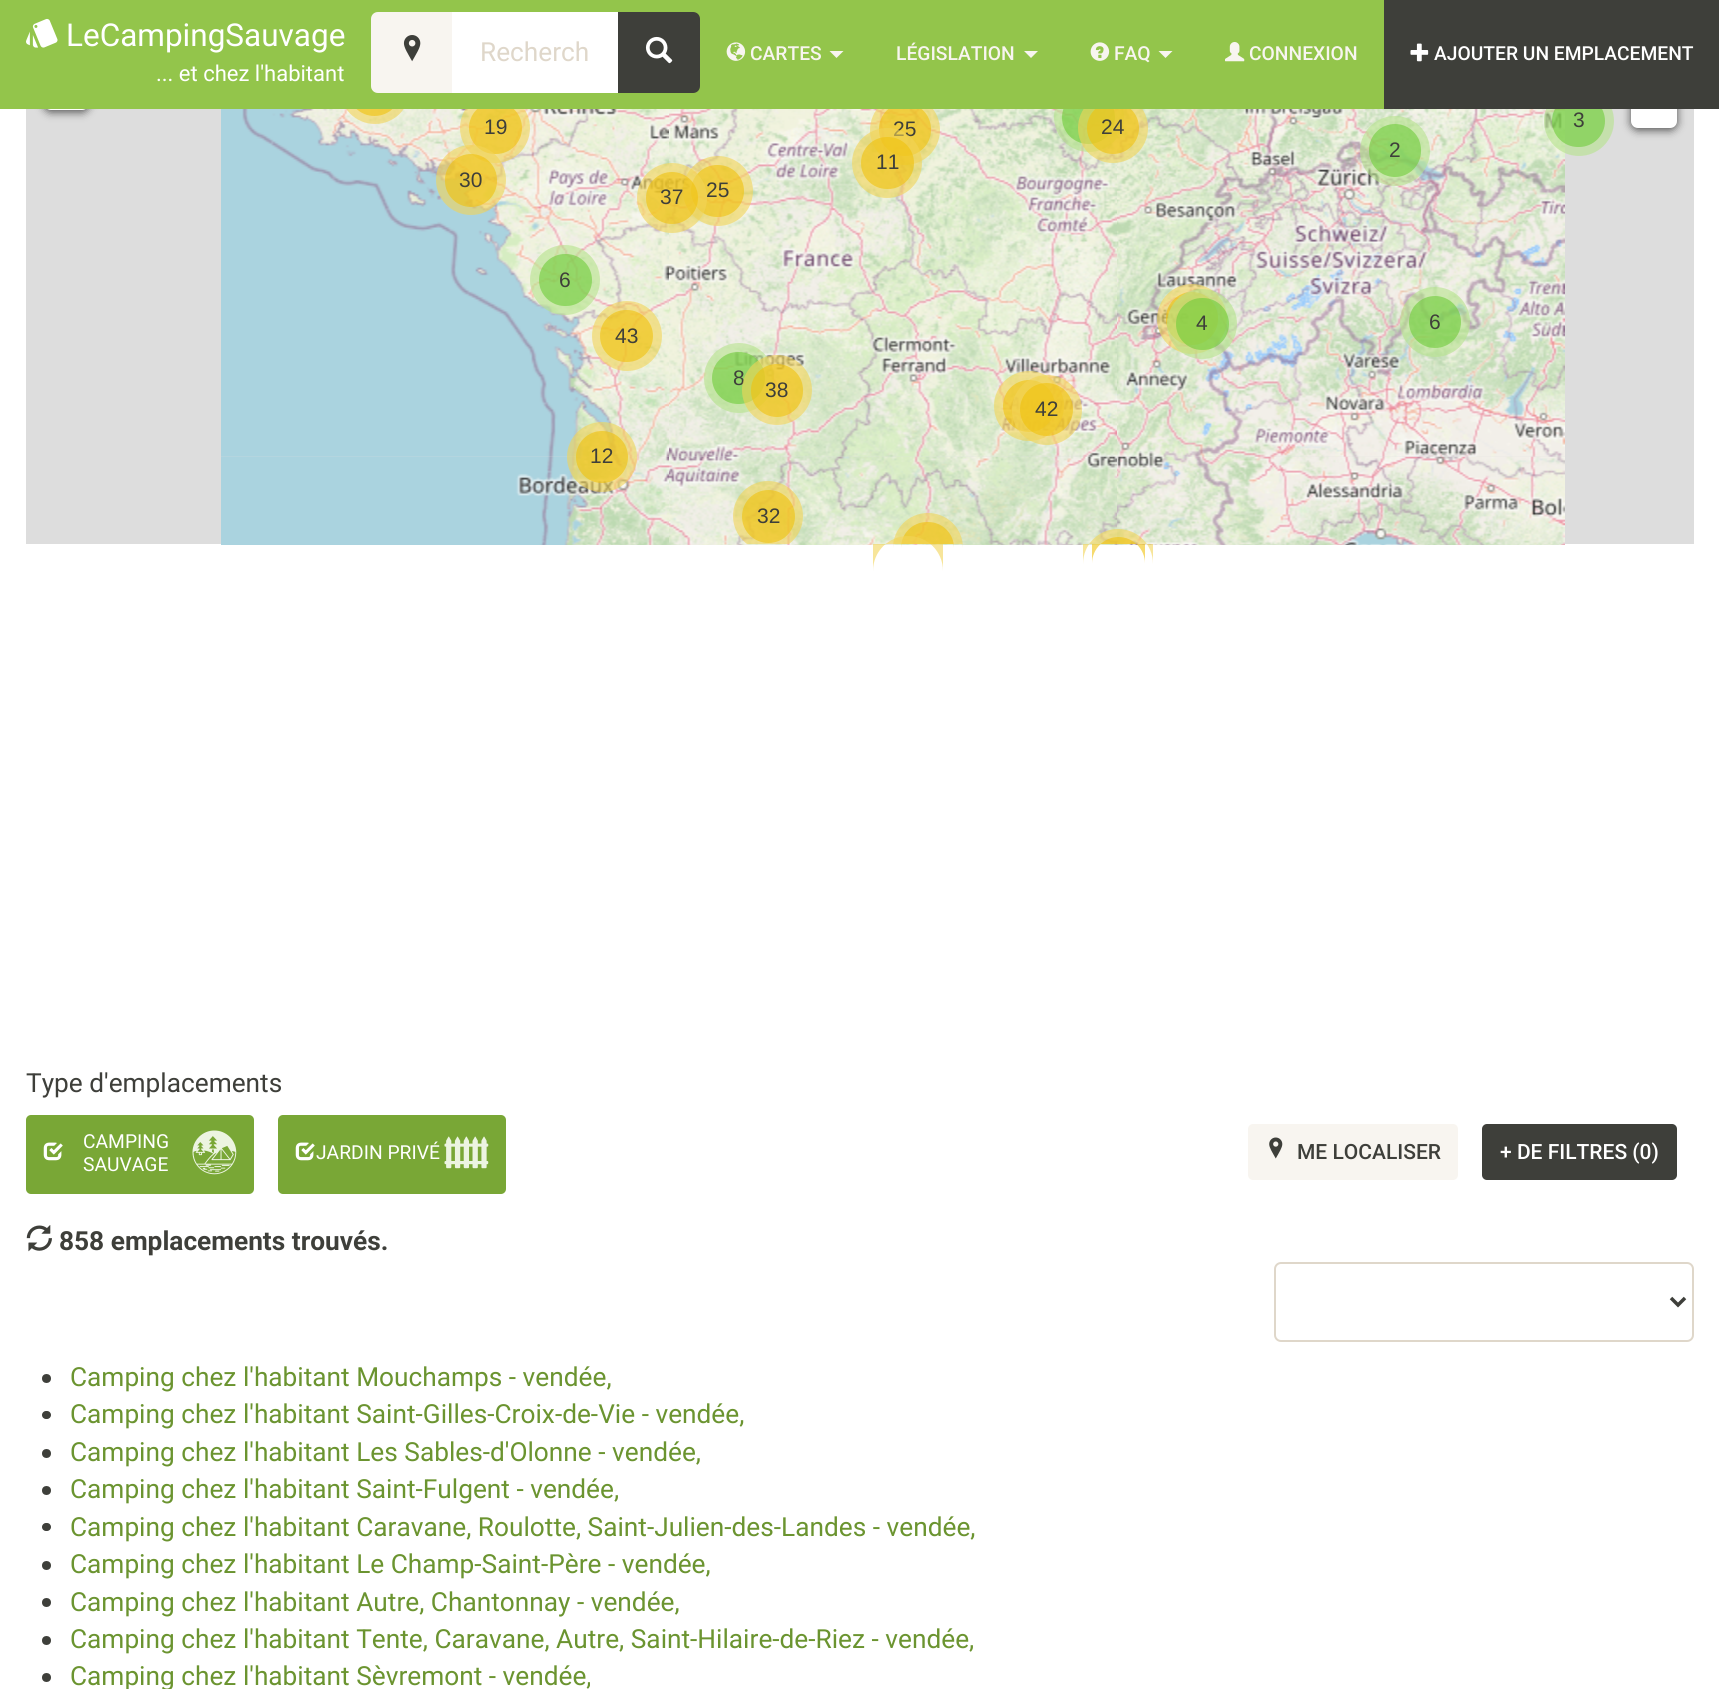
#include <cairo.h>
#include <math.h>
#include <stddef.h>

typedef struct { double x, y; const char *s; } line_t;

static void ink(cairo_t *ctx, unsigned color) {
    cairo_set_source_rgb(ctx, (color >> 16) / 255.0, (color >> 8 & 255) / 255.0, (color & 255) / 255.0);
}

static void round_path(cairo_t *ctx, double x, double y, double w, double h, double r) {
    cairo_new_sub_path(ctx);
    cairo_arc(ctx, x + w - r, y + h - r, r, 0, M_PI / 2);
    cairo_arc(ctx, x + r, y + h - r, r, M_PI / 2, M_PI);
    cairo_arc(ctx, x + r, y + r, r, M_PI, 1.5 * M_PI);
    cairo_arc(ctx, x + w - r, y + r, r, 1.5 * M_PI, 2 * M_PI);
    cairo_close_path(ctx);
}

static void blur_box(cairo_t *ctx, double x, double y, double w, double h, double r, double blur, double alpha) {
    cairo_push_group_with_content(ctx, CAIRO_CONTENT_ALPHA);
    cairo_set_operator(ctx, CAIRO_OPERATOR_SOURCE);
    for (int i = 15; i >= -15 && fmin(w, h) + blur * i / 3 > 0; i -= 2) {
        double e = blur * i / 6;
        cairo_set_source_rgba(ctx, 0, 0, 0, alpha * erfc((i - 1) / 8.5) / 2);
        round_path(ctx, x - e, y - e, w + 2 * e, h + 2 * e, fmax(0, fmin(r + e + blur * .6, fmin(w, h) / 2 + e)));
        cairo_fill(ctx);
    }
    cairo_pattern_t *soft = cairo_pop_group(ctx);
    cairo_mask(ctx, soft);
    cairo_pattern_destroy(soft);
}

static void paste(cairo_t *ctx, const char *path, double x, double y, double w, double h) {
    cairo_surface_t *image = cairo_image_surface_create_from_png(path);
    cairo_save(ctx);
    cairo_set_source_surface(ctx, image, x, y);
    cairo_rectangle(ctx, x, y, w, h);
    cairo_fill(ctx);
    cairo_restore(ctx);
    cairo_surface_destroy(image);
}

int main(void) {
    cairo_surface_t *surface = cairo_image_surface_create(CAIRO_FORMAT_RGB24, 1719, 1689);
    cairo_t *ctx = cairo_create(surface);
    cairo_font_options_t *options = cairo_font_options_create();
    cairo_font_options_set_hint_metrics(options, CAIRO_HINT_METRICS_OFF);
    cairo_font_options_set_hint_style(options, CAIRO_HINT_STYLE_NONE);
    cairo_set_font_options(ctx, options);
    cairo_set_miter_limit(ctx, 4);
    ink(ctx, 0xFFFFFF);
    cairo_paint(ctx);
    ink(ctx, 0xDDDDDD);
    cairo_rectangle(ctx, 26, 109, 1668, 435);
    cairo_fill(ctx);
    ink(ctx, 0x000000);
    blur_box(ctx, 44, 67, 45, 45, 7, 4.5, 0.65);
    ink(ctx, 0xFFFFFF);
    round_path(ctx, 44, 65, 45, 45, 7);
    cairo_fill(ctx);
    paste(ctx, "media/7.png", 221, 109, 448, 348);
    cairo_set_source_rgba(ctx, 0.945, 0.827, 0.341, 0.6);
    cairo_arc(ctx, 375, 89, 35, 0, 2 * M_PI);
    cairo_fill(ctx);
    cairo_set_source_rgba(ctx, 0.941, 0.761, 0.047, 0.6);
    cairo_arc(ctx, 374.5, 89.5, 26.5, 0, 2 * M_PI);
    cairo_fill(ctx);
    cairo_set_source_rgba(ctx, 0.945, 0.827, 0.341, 0.6);
    cairo_arc(ctx, 495, 128, 35, 0, 2 * M_PI);
    cairo_fill(ctx);
    cairo_set_source_rgba(ctx, 0.941, 0.761, 0.047, 0.6);
    round_path(ctx, 469, 102, 53, 52, 26);
    cairo_fill(ctx);
    paste(ctx, "media/8.png", 669, 109, 448, 348);
    paste(ctx, "media/9.png", 1117, 109, 448, 348);
    cairo_set_source_rgba(ctx, 0.71, 0.886, 0.549, 0.6);
    cairo_arc(ctx, 1089, 117, 35, 0, 2 * M_PI);
    cairo_fill(ctx);
    cairo_set_source_rgba(ctx, 0.431, 0.8, 0.224, 0.6);
    cairo_arc(ctx, 1088.5, 117.5, 26.5, 0, 2 * M_PI);
    cairo_fill(ctx);
    cairo_set_source_rgba(ctx, 0.945, 0.827, 0.341, 0.6);
    cairo_arc(ctx, 905, 130, 35, 0, 2 * M_PI);
    cairo_fill(ctx);
    cairo_set_source_rgba(ctx, 0.941, 0.761, 0.047, 0.6);
    round_path(ctx, 879, 103, 52, 53, 26);
    cairo_fill(ctx);
    cairo_set_source_rgba(ctx, 0.945, 0.827, 0.341, 0.6);
    cairo_arc(ctx, 1113, 128, 35, 0, 2 * M_PI);
    cairo_fill(ctx);
    cairo_set_source_rgba(ctx, 0.941, 0.761, 0.047, 0.6);
    cairo_arc(ctx, 1113, 128, 26, 0, 2 * M_PI);
    cairo_fill(ctx);
    ink(ctx, 0x93C54B);
    cairo_rectangle(ctx, 0, 0, 1384, 109);
    cairo_fill(ctx);
    cairo_select_font_face(ctx, "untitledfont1", CAIRO_FONT_SLANT_NORMAL, CAIRO_FONT_WEIGHT_NORMAL);
    cairo_set_font_size(ctx, 31.5);
    ink(ctx, 0xFFFFFF);
    cairo_move_to(ctx, 26, 49);
    cairo_show_text(ctx, ">");
    cairo_select_font_face(ctx, "Roboto", CAIRO_FONT_SLANT_NORMAL, CAIRO_FONT_WEIGHT_NORMAL);
    cairo_move_to(ctx, 66, 46);
    cairo_show_text(ctx, "LeCampingSauvage");
    cairo_set_font_size(ctx, 22);
    cairo_move_to(ctx, 156, 81);
    cairo_show_text(ctx, "... et chez l'habitant");
    ink(ctx, 0xF8F5F0);
    cairo_new_path(ctx);
    cairo_move_to(ctx, 378, 12);
    cairo_line_to(ctx, 453, 12);
    cairo_line_to(ctx, 453, 93);
    cairo_line_to(ctx, 378, 93);
    cairo_curve_to(ctx, 374, 93, 371, 90, 371, 86);
    cairo_line_to(ctx, 371, 19);
    cairo_curve_to(ctx, 371, 15, 374, 12, 378, 12);
    cairo_close_path(ctx);
    cairo_fill(ctx);
    paste(ctx, "media/1.png", 403, 35, 18, 27);
    ink(ctx, 0xFFFFFF);
    cairo_rectangle(ctx, 452, 12, 166, 81);
    cairo_fill(ctx);
    cairo_set_font_size(ctx, 26.25);
    ink(ctx, 0xDFD7CA);
    cairo_move_to(ctx, 480, 61);
    cairo_show_text(ctx, "Recherch");
    ink(ctx, 0x3E3F3A);
    cairo_new_path(ctx);
    cairo_move_to(ctx, 618, 12);
    cairo_line_to(ctx, 693, 12);
    cairo_curve_to(ctx, 697, 12, 700, 15, 700, 19);
    cairo_line_to(ctx, 700, 86);
    cairo_curve_to(ctx, 700, 90, 697, 93, 693, 93);
    cairo_line_to(ctx, 618, 93);
    cairo_close_path(ctx);
    cairo_fill(ctx);
    paste(ctx, "media/2.png", 645, 36, 28, 28);
    paste(ctx, "media/3.png", 726, 42, 20, 19);
    cairo_select_font_face(ctx, "Roboto Medium", CAIRO_FONT_SLANT_NORMAL, CAIRO_FONT_WEIGHT_NORMAL);
    cairo_set_font_size(ctx, 19.25);
    ink(ctx, 0xF8F5F0);
    cairo_move_to(ctx, 750, 60);
    cairo_show_text(ctx, "CARTES");
    cairo_new_path(ctx);
    cairo_move_to(ctx, 829.5, 51);
    cairo_line_to(ctx, 843.5, 51);
    cairo_line_to(ctx, 836.5, 58);
    cairo_close_path(ctx);
    cairo_fill(ctx);
    cairo_move_to(ctx, 896, 60);
    cairo_show_text(ctx, "LÉGISLATION");
    cairo_new_path(ctx);
    cairo_move_to(ctx, 1024, 51);
    cairo_line_to(ctx, 1038, 51);
    cairo_line_to(ctx, 1031, 58);
    cairo_close_path(ctx);
    cairo_fill(ctx);
    paste(ctx, "media/4.png", 1090, 42, 20, 19);
    cairo_move_to(ctx, 1114, 60);
    cairo_show_text(ctx, "FAQ");
    cairo_new_path(ctx);
    cairo_move_to(ctx, 1158.5, 51);
    cairo_line_to(ctx, 1172.5, 51);
    cairo_line_to(ctx, 1165.5, 58);
    cairo_close_path(ctx);
    cairo_fill(ctx);
    paste(ctx, "media/5.png", 1225, 42, 20, 20);
    cairo_move_to(ctx, 1249, 60);
    cairo_show_text(ctx, "CONNEXION");
    ink(ctx, 0x000000);
    blur_box(ctx, 1631, 39, 46, 91, 7, 4.5, 0.65);
    ink(ctx, 0xFFFFFF);
    cairo_new_path(ctx);
    cairo_move_to(ctx, 1631, 82);
    cairo_line_to(ctx, 1677, 82);
    cairo_line_to(ctx, 1677, 121);
    cairo_curve_to(ctx, 1677, 125, 1674, 128, 1670, 128);
    cairo_line_to(ctx, 1638, 128);
    cairo_curve_to(ctx, 1634, 128, 1631, 125, 1631, 121);
    cairo_close_path(ctx);
    cairo_fill(ctx);
    cairo_set_source_rgba(ctx, 0.71, 0.886, 0.549, 0.6);
    cairo_arc(ctx, 1579, 121, 35, 0, 2 * M_PI);
    cairo_fill(ctx);
    cairo_set_source_rgba(ctx, 0.431, 0.8, 0.224, 0.6);
    round_path(ctx, 1552, 95, 53, 52, 26);
    cairo_fill(ctx);
    ink(ctx, 0x3E3F3A);
    cairo_rectangle(ctx, 1384, 0, 335, 109);
    cairo_fill(ctx);
    paste(ctx, "media/6.png", 1410, 43, 19, 19);
    ink(ctx, 0xFFFFFF);
    cairo_move_to(ctx, 1434, 60);
    cairo_show_text(ctx, "AJOUTER UN EMPLACEMENT");
    paste(ctx, "media/10.png", 221, 456, 448, 89);
    paste(ctx, "media/11.png", 669, 456, 448, 89);
    paste(ctx, "media/12.png", 1117, 456, 448, 89);
    cairo_select_font_face(ctx, "Liberation Sans", CAIRO_FONT_SLANT_NORMAL, CAIRO_FONT_WEIGHT_NORMAL);
    cairo_set_font_size(ctx, 21);
    ink(ctx, 0x3E3F3A);
    {
        static const line_t items[] = {
            {484, 134, "19"},
            {1573, 127, "3"},
            {893, 136, "25"},
            {1101, 134, "24"},
        };
        for (size_t i = 0; i < sizeof items / sizeof *items; i++) {
            cairo_move_to(ctx, items[i].x, items[i].y);
            cairo_show_text(ctx, items[i].s);
        }
    }
    cairo_set_source_rgba(ctx, 0.71, 0.886, 0.549, 0.6);
    cairo_new_path(ctx);
    cairo_arc(ctx, 1395, 151, 35, 0, 2 * M_PI);
    cairo_fill(ctx);
    cairo_set_source_rgba(ctx, 0.431, 0.8, 0.224, 0.6);
    round_path(ctx, 1369, 124, 52, 53, 26);
    cairo_fill(ctx);
    ink(ctx, 0x3E3F3A);
    cairo_move_to(ctx, 1389, 157);
    cairo_show_text(ctx, "2");
    cairo_set_source_rgba(ctx, 0.945, 0.827, 0.341, 0.6);
    cairo_new_path(ctx);
    cairo_arc(ctx, 887, 163, 35, 0, 2 * M_PI);
    cairo_fill(ctx);
    cairo_set_source_rgba(ctx, 0.941, 0.761, 0.047, 0.6);
    round_path(ctx, 861, 137, 53, 52, 26);
    cairo_fill(ctx);
    ink(ctx, 0x3E3F3A);
    cairo_move_to(ctx, 876, 169);
    cairo_show_text(ctx, "11");
    cairo_set_source_rgba(ctx, 0.945, 0.827, 0.341, 0.6);
    cairo_new_path(ctx);
    cairo_arc(ctx, 471, 180, 35, 0, 2 * M_PI);
    cairo_fill(ctx);
    cairo_set_source_rgba(ctx, 0.941, 0.761, 0.047, 0.6);
    round_path(ctx, 445, 154, 52, 53, 26);
    cairo_fill(ctx);
    ink(ctx, 0x3E3F3A);
    cairo_move_to(ctx, 459, 187);
    cairo_show_text(ctx, "30");
    cairo_set_source_rgba(ctx, 0.945, 0.827, 0.341, 0.6);
    cairo_new_path(ctx);
    cairo_arc(ctx, 718, 191, 35, 0, 2 * M_PI);
    cairo_fill(ctx);
    cairo_set_source_rgba(ctx, 0.941, 0.761, 0.047, 0.6);
    round_path(ctx, 691, 165, 53, 52, 26);
    cairo_fill(ctx);
    ink(ctx, 0x3E3F3A);
    cairo_move_to(ctx, 706, 197);
    cairo_show_text(ctx, "25");
    cairo_set_source_rgba(ctx, 0.945, 0.827, 0.341, 0.6);
    cairo_new_path(ctx);
    cairo_arc(ctx, 672, 198, 35, 0, 2 * M_PI);
    cairo_fill(ctx);
    cairo_set_source_rgba(ctx, 0.941, 0.761, 0.047, 0.6);
    cairo_arc(ctx, 672, 198, 26, 0, 2 * M_PI);
    cairo_fill(ctx);
    ink(ctx, 0x3E3F3A);
    cairo_move_to(ctx, 660, 204);
    cairo_show_text(ctx, "37");
    cairo_set_source_rgba(ctx, 0.71, 0.886, 0.549, 0.6);
    cairo_new_path(ctx);
    cairo_arc(ctx, 565, 280, 35, 0, 2 * M_PI);
    cairo_fill(ctx);
    cairo_set_source_rgba(ctx, 0.431, 0.8, 0.224, 0.6);
    round_path(ctx, 539, 254, 53, 52, 26);
    cairo_fill(ctx);
    ink(ctx, 0x3E3F3A);
    cairo_move_to(ctx, 559, 287);
    cairo_show_text(ctx, "6");
    cairo_set_source_rgba(ctx, 0.945, 0.827, 0.341, 0.6);
    cairo_new_path(ctx);
    cairo_arc(ctx, 1192, 319, 35, 0, 2 * M_PI);
    cairo_fill(ctx);
    cairo_set_source_rgba(ctx, 0.941, 0.761, 0.047, 0.6);
    round_path(ctx, 1166, 292, 52, 53, 26);
    cairo_fill(ctx);
    cairo_set_source_rgba(ctx, 0.71, 0.886, 0.549, 0.6);
    cairo_arc(ctx, 1435, 322, 35, 0, 2 * M_PI);
    cairo_fill(ctx);
    cairo_set_source_rgba(ctx, 0.431, 0.8, 0.224, 0.6);
    cairo_arc(ctx, 1435, 322, 26, 0, 2 * M_PI);
    cairo_fill(ctx);
    ink(ctx, 0x3E3F3A);
    cairo_move_to(ctx, 1429, 329);
    cairo_show_text(ctx, "6");
    cairo_set_source_rgba(ctx, 0.71, 0.886, 0.549, 0.6);
    cairo_new_path(ctx);
    cairo_arc(ctx, 1202, 324, 35, 0, 2 * M_PI);
    cairo_fill(ctx);
    cairo_set_source_rgba(ctx, 0.431, 0.8, 0.224, 0.6);
    round_path(ctx, 1176, 298, 53, 52, 26);
    cairo_fill(ctx);
    ink(ctx, 0x3E3F3A);
    cairo_move_to(ctx, 1196, 330);
    cairo_show_text(ctx, "4");
    cairo_set_source_rgba(ctx, 0.945, 0.827, 0.341, 0.6);
    cairo_new_path(ctx);
    cairo_arc(ctx, 627, 336, 35, 0, 2 * M_PI);
    cairo_fill(ctx);
    cairo_set_source_rgba(ctx, 0.941, 0.761, 0.047, 0.6);
    round_path(ctx, 600, 310, 53, 52, 26);
    cairo_fill(ctx);
    ink(ctx, 0x3E3F3A);
    cairo_move_to(ctx, 615, 343);
    cairo_show_text(ctx, "43");
    cairo_set_source_rgba(ctx, 0.71, 0.886, 0.549, 0.6);
    cairo_new_path(ctx);
    cairo_arc(ctx, 739, 378, 35, 0, 2 * M_PI);
    cairo_fill(ctx);
    cairo_set_source_rgba(ctx, 0.431, 0.8, 0.224, 0.6);
    round_path(ctx, 712, 352, 53, 52, 26);
    cairo_fill(ctx);
    ink(ctx, 0x3E3F3A);
    cairo_move_to(ctx, 733, 385);
    cairo_show_text(ctx, "8");
    cairo_set_source_rgba(ctx, 0.945, 0.827, 0.341, 0.6);
    cairo_new_path(ctx);
    cairo_arc(ctx, 777, 390, 35, 0, 2 * M_PI);
    cairo_fill(ctx);
    cairo_set_source_rgba(ctx, 0.941, 0.761, 0.047, 0.6);
    round_path(ctx, 751, 364, 52, 53, 26);
    cairo_fill(ctx);
    ink(ctx, 0x3E3F3A);
    cairo_move_to(ctx, 765, 397);
    cairo_show_text(ctx, "38");
    cairo_set_source_rgba(ctx, 0.945, 0.827, 0.341, 0.6);
    cairo_new_path(ctx);
    cairo_arc(ctx, 1029, 406, 35, 0, 2 * M_PI);
    cairo_fill(ctx);
    cairo_set_source_rgba(ctx, 0.941, 0.761, 0.047, 0.6);
    cairo_arc(ctx, 1029, 406, 26, 0, 2 * M_PI);
    cairo_fill(ctx);
    cairo_set_source_rgba(ctx, 0.945, 0.827, 0.341, 0.6);
    cairo_arc(ctx, 1047, 410, 35, 0, 2 * M_PI);
    cairo_fill(ctx);
    cairo_set_source_rgba(ctx, 0.941, 0.761, 0.047, 0.6);
    cairo_arc(ctx, 1046.5, 409.5, 26.5, 0, 2 * M_PI);
    cairo_fill(ctx);
    ink(ctx, 0x3E3F3A);
    cairo_move_to(ctx, 1035, 416);
    cairo_show_text(ctx, "42");
    cairo_set_source_rgba(ctx, 0.945, 0.827, 0.341, 0.6);
    cairo_new_path(ctx);
    cairo_arc(ctx, 602, 457, 35, 0, 2 * M_PI);
    cairo_fill(ctx);
    cairo_set_source_rgba(ctx, 0.941, 0.761, 0.047, 0.6);
    cairo_arc(ctx, 602, 457, 26, 0, 2 * M_PI);
    cairo_fill(ctx);
    ink(ctx, 0x3E3F3A);
    cairo_move_to(ctx, 590, 463);
    cairo_show_text(ctx, "12");
    cairo_save(ctx);
    cairo_rectangle(ctx, 26, 19, 1668, 525);
    cairo_clip(ctx);
    cairo_set_source_rgba(ctx, 0.945, 0.827, 0.341, 0.6);
    cairo_arc(ctx, 768, 516, 35, 0, 2 * M_PI);
    cairo_fill(ctx);
    cairo_restore(ctx);
    cairo_set_source_rgba(ctx, 0.941, 0.761, 0.047, 0.6);
    cairo_arc(ctx, 768.5, 516.5, 26.5, 0, 2 * M_PI);
    cairo_fill(ctx);
    ink(ctx, 0x3E3F3A);
    cairo_move_to(ctx, 757, 523);
    cairo_show_text(ctx, "32");
    cairo_set_source_rgba(ctx, 0.945, 0.827, 0.341, 0.6);
    cairo_new_path(ctx);
    cairo_move_to(ctx, 928, 513);
    cairo_curve_to(ctx, 947.5, 513, 963, 528.5, 963, 548);
    cairo_line_to(ctx, 963, 544);
    cairo_line_to(ctx, 893, 544);
    cairo_line_to(ctx, 893, 548);
    cairo_curve_to(ctx, 893, 528.5, 908.5, 513, 928, 513);
    cairo_close_path(ctx);
    cairo_fill(ctx);
    cairo_set_source_rgba(ctx, 0.941, 0.761, 0.047, 0.6);
    cairo_new_path(ctx);
    cairo_move_to(ctx, 927, 522);
    cairo_line_to(ctx, 928, 522);
    cairo_curve_to(ctx, 942.5, 522, 954, 533.5, 954, 548);
    cairo_line_to(ctx, 954, 544);
    cairo_line_to(ctx, 901, 544);
    cairo_line_to(ctx, 901, 548);
    cairo_curve_to(ctx, 901, 533.5, 912.5, 522, 927, 522);
    cairo_close_path(ctx);
    cairo_fill(ctx);
    cairo_set_source_rgba(ctx, 0.945, 0.827, 0.341, 0.6);
    cairo_new_path(ctx);
    cairo_move_to(ctx, 1118, 529);
    cairo_curve_to(ctx, 1137.5, 529, 1153, 544.5, 1153, 564);
    cairo_line_to(ctx, 1153, 544);
    cairo_line_to(ctx, 1083, 544);
    cairo_line_to(ctx, 1083, 564);
    cairo_curve_to(ctx, 1083, 544.5, 1098.5, 529, 1118, 529);
    cairo_close_path(ctx);
    cairo_fill(ctx);
    cairo_set_source_rgba(ctx, 0.941, 0.761, 0.047, 0.6);
    cairo_new_path(ctx);
    cairo_move_to(ctx, 1118.5, 537);
    cairo_curve_to(ctx, 1133, 537, 1145, 549, 1145, 563.5);
    cairo_line_to(ctx, 1145, 544);
    cairo_line_to(ctx, 1092, 544);
    cairo_line_to(ctx, 1092, 563.5);
    cairo_curve_to(ctx, 1092, 549, 1104, 537, 1118.5, 537);
    cairo_close_path(ctx);
    cairo_fill(ctx);
    cairo_set_source_rgba(ctx, 0.945, 0.827, 0.341, 0.6);
    cairo_new_path(ctx);
    cairo_move_to(ctx, 908, 536);
    cairo_curve_to(ctx, 927.5, 536, 943, 551.5, 943, 571);
    cairo_line_to(ctx, 943, 544);
    cairo_line_to(ctx, 873, 544);
    cairo_line_to(ctx, 873, 571);
    cairo_curve_to(ctx, 873, 551.5, 888.5, 536, 908, 536);
    cairo_close_path(ctx);
    cairo_fill(ctx);
    cairo_select_font_face(ctx, "Roboto", CAIRO_FONT_SLANT_NORMAL, CAIRO_FONT_WEIGHT_NORMAL);
    cairo_set_font_size(ctx, 26.25);
    ink(ctx, 0x3E3F3A);
    cairo_move_to(ctx, 26, 1092);
    cairo_show_text(ctx, "Type d'emplacements");
    ink(ctx, 0x79A736);
    round_path(ctx, 26, 1115, 228, 79, 5);
    cairo_fill(ctx);
    paste(ctx, "media/13.png", 43, 1142, 20, 19);
    cairo_set_font_size(ctx, 19.25);
    ink(ctx, 0xFFFFFF);
    cairo_move_to(ctx, 83, 1148);
    cairo_show_text(ctx, "CAMPING");
    cairo_move_to(ctx, 83, 1171);
    cairo_show_text(ctx, "SAUVAGE");
    paste(ctx, "media/14.png", 192, 1130, 45, 45);
    ink(ctx, 0x79A736);
    round_path(ctx, 278, 1115, 228, 79, 5);
    cairo_fill(ctx);
    paste(ctx, "media/13.png", 295, 1142, 20, 19);
    ink(ctx, 0xFFFFFF);
    cairo_move_to(ctx, 316, 1159);
    cairo_show_text(ctx, "JARDIN PRIVÉ");
    paste(ctx, "media/15.png", 444, 1136, 45, 33);
    ink(ctx, 0xF8F5F0);
    round_path(ctx, 1248, 1124, 210, 56, 5);
    cairo_fill(ctx);
    paste(ctx, "media/16.png", 1269, 1137, 14, 22);
    cairo_select_font_face(ctx, "Roboto Medium", CAIRO_FONT_SLANT_NORMAL, CAIRO_FONT_WEIGHT_NORMAL);
    cairo_set_font_size(ctx, 21);
    ink(ctx, 0x3E3F3A);
    cairo_move_to(ctx, 1297, 1159);
    cairo_show_text(ctx, "ME LOCALISER");
    round_path(ctx, 1482, 1124, 195, 56, 5);
    cairo_fill(ctx);
    ink(ctx, 0xFFFFFF);
    cairo_move_to(ctx, 1500, 1159);
    cairo_show_text(ctx, "+ DE FILTRES (0)");
    paste(ctx, "media/17.png", 26, 1225, 26, 27);
    cairo_select_font_face(ctx, "Roboto", CAIRO_FONT_SLANT_NORMAL, CAIRO_FONT_WEIGHT_BOLD);
    cairo_set_font_size(ctx, 26.25);
    ink(ctx, 0x3E3F3A);
    cairo_move_to(ctx, 59, 1250);
    cairo_show_text(ctx, "858 emplacements trouvés.");
    round_path(ctx, 1275, 1263, 418, 78, 6);
    ink(ctx, 0xDFD7CA);
    cairo_stroke(ctx);
    cairo_new_path(ctx);
    cairo_move_to(ctx, 1671, 1298);
    cairo_line_to(ctx, 1678, 1305);
    cairo_line_to(ctx, 1685, 1298);
    ink(ctx, 0x3E3F3A);
    cairo_set_line_width(ctx, 3.5);
    cairo_stroke(ctx);
    cairo_arc(ctx, 46.5, 1378.5, 4.5, 0, 2 * M_PI);
    cairo_fill(ctx);
    cairo_select_font_face(ctx, "Roboto", CAIRO_FONT_SLANT_NORMAL, CAIRO_FONT_WEIGHT_NORMAL);
    ink(ctx, 0x6B9430);
    cairo_move_to(ctx, 70, 1386);
    cairo_show_text(ctx, "Camping chez l'habitant Mouchamps - vendée,");
    ink(ctx, 0x3E3F3A);
    round_path(ctx, 42, 1411, 9, 8, 4);
    cairo_fill(ctx);
    ink(ctx, 0x6B9430);
    cairo_move_to(ctx, 70, 1423);
    cairo_show_text(ctx, "Camping chez l'habitant Saint-Gilles-Croix-de-Vie - vendée,");
    ink(ctx, 0x3E3F3A);
    cairo_new_path(ctx);
    cairo_arc(ctx, 46.5, 1453.5, 4.5, 0, 2 * M_PI);
    cairo_fill(ctx);
    ink(ctx, 0x6B9430);
    cairo_move_to(ctx, 70, 1461);
    cairo_show_text(ctx, "Camping chez l'habitant Les Sables-d'Olonne - vendée,");
    ink(ctx, 0x3E3F3A);
    cairo_new_path(ctx);
    cairo_arc(ctx, 46.5, 1490.5, 4.5, 0, 2 * M_PI);
    cairo_fill(ctx);
    ink(ctx, 0x6B9430);
    cairo_move_to(ctx, 70, 1498);
    cairo_show_text(ctx, "Camping chez l'habitant Saint-Fulgent - vendée,");
    ink(ctx, 0x3E3F3A);
    round_path(ctx, 42, 1523, 9, 8, 4);
    cairo_fill(ctx);
    ink(ctx, 0x6B9430);
    cairo_move_to(ctx, 70, 1536);
    cairo_show_text(ctx, "Camping chez l'habitant Caravane, Roulotte, Saint-Julien-des-Landes - vendée,");
    ink(ctx, 0x3E3F3A);
    cairo_new_path(ctx);
    cairo_arc(ctx, 46.5, 1565.5, 4.5, 0, 2 * M_PI);
    cairo_fill(ctx);
    ink(ctx, 0x6B9430);
    cairo_move_to(ctx, 70, 1573);
    cairo_show_text(ctx, "Camping chez l'habitant Le Champ-Saint-Père - vendée,");
    ink(ctx, 0x3E3F3A);
    cairo_new_path(ctx);
    cairo_arc(ctx, 46.5, 1602.5, 4.5, 0, 2 * M_PI);
    cairo_fill(ctx);
    ink(ctx, 0x6B9430);
    cairo_move_to(ctx, 70, 1611);
    cairo_show_text(ctx, "Camping chez l'habitant Autre, Chantonnay - vendée,");
    ink(ctx, 0x3E3F3A);
    cairo_new_path(ctx);
    cairo_arc(ctx, 46.5, 1640.5, 4.5, 0, 2 * M_PI);
    cairo_fill(ctx);
    ink(ctx, 0x6B9430);
    cairo_move_to(ctx, 70, 1648);
    cairo_show_text(ctx, "Camping chez l'habitant Tente, Caravane, Autre, Saint-Hilaire-de-Riez - vendée,");
    ink(ctx, 0x3E3F3A);
    cairo_new_path(ctx);
    cairo_arc(ctx, 46.5, 1677.5, 4.5, 0, 2 * M_PI);
    cairo_fill(ctx);
    ink(ctx, 0x6B9430);
    cairo_move_to(ctx, 70, 1685);
    cairo_show_text(ctx, "Camping chez l'habitant Sèvremont - vendée,");
    cairo_surface_write_to_png(surface, "image.png");
    cairo_font_options_destroy(options);
    cairo_destroy(ctx);
    cairo_surface_destroy(surface);
    return 0;
}
